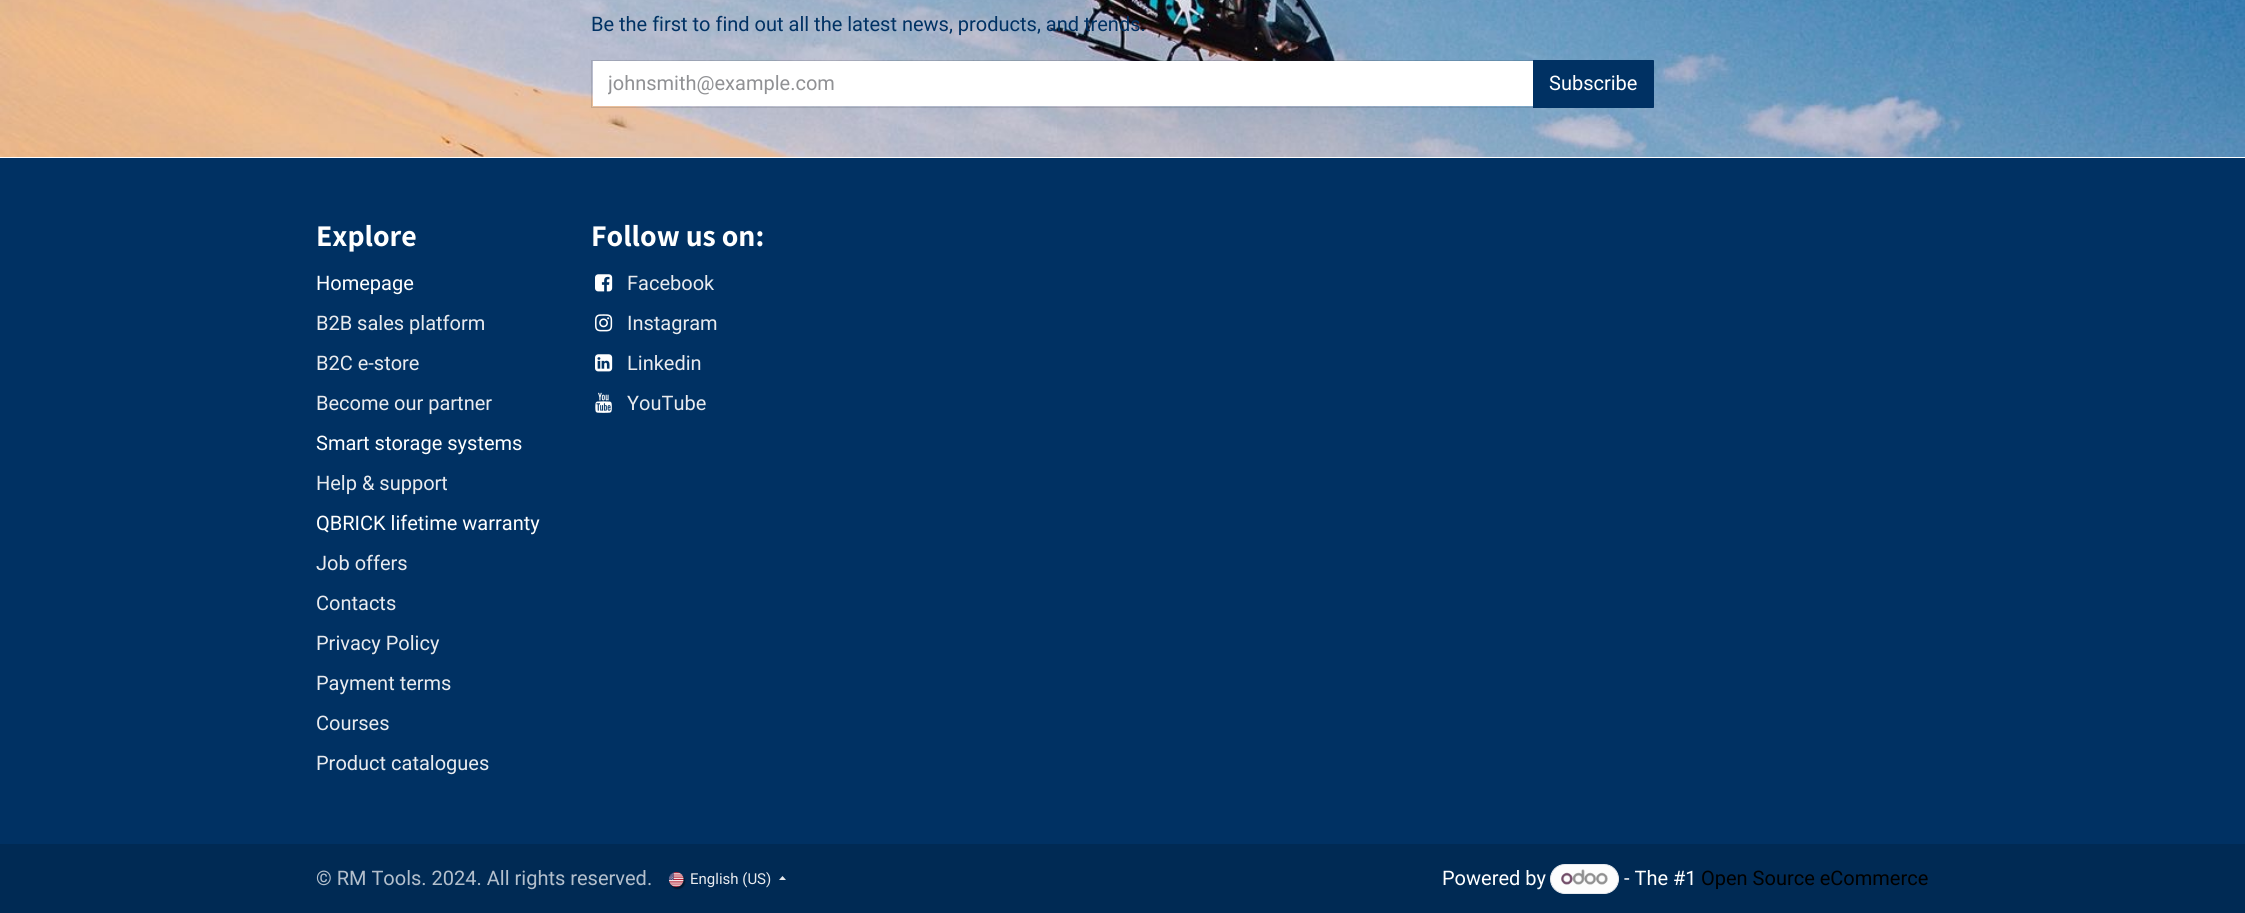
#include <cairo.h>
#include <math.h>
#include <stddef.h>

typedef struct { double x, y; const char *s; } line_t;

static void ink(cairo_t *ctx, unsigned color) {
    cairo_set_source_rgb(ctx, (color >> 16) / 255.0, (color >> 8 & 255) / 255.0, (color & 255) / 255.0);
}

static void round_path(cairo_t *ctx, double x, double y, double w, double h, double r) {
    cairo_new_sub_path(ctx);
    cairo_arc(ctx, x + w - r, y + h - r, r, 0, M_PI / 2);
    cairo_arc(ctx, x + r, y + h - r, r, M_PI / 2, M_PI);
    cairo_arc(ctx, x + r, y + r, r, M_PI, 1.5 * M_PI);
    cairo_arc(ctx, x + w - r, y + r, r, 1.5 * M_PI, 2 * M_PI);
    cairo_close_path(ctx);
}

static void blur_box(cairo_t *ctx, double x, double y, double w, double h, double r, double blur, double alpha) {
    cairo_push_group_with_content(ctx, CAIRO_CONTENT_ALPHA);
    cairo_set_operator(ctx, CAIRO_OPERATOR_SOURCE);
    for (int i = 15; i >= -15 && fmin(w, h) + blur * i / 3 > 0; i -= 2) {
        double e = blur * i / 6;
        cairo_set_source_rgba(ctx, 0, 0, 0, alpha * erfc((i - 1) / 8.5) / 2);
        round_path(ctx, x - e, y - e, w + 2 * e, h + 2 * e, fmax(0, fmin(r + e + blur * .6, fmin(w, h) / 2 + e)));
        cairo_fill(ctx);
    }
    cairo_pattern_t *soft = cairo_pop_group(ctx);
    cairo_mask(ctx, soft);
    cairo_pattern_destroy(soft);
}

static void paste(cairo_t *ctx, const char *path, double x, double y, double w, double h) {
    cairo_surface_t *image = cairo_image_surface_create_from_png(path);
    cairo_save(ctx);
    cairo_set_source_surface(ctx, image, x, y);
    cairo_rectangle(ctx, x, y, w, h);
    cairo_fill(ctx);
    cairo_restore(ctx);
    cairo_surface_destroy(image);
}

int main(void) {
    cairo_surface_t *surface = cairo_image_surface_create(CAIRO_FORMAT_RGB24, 2245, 913);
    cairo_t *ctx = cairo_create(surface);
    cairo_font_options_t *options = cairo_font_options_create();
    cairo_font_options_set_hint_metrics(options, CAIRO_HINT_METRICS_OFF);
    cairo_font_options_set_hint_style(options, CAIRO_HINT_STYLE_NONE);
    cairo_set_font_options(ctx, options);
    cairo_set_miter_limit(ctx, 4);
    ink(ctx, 0xFFFFFF);
    cairo_paint(ctx);
    paste(ctx, "media/1.png", 0, 0, 2245, 157);
    cairo_select_font_face(ctx, "Roboto", CAIRO_FONT_SLANT_NORMAL, CAIRO_FONT_WEIGHT_NORMAL);
    cairo_set_font_size(ctx, 20);
    ink(ctx, 0x003163);
    cairo_move_to(ctx, 591, 31);
    cairo_show_text(ctx, "Be the first to find out all the latest news, products, and trends.");
    ink(ctx, 0xFFFFFF);
    cairo_rectangle(ctx, 593, 61, 940, 45);
    cairo_fill(ctx);
    cairo_rectangle(ctx, 591.5, 60.5, 942, 47);
    cairo_set_source_rgba(ctx, 0.129, 0.137, 0.161, 0.15);
    cairo_set_line_width(ctx, 1);
    cairo_stroke(ctx);
    cairo_save(ctx);
    cairo_rectangle(ctx, 608, 71, 910, 24);
    cairo_clip(ctx);
    ink(ctx, 0x909194);
    cairo_move_to(ctx, 608, 90);
    cairo_show_text(ctx, "johnsmith@example.com");
    cairo_restore(ctx);
    ink(ctx, 0x003163);
    cairo_new_path(ctx);
    cairo_move_to(ctx, 1533.5, 60.5);
    cairo_line_to(ctx, 1653, 60.5);
    cairo_curve_to(ctx, 1653.5, 60.5, 1653.5, 60.5, 1653.5, 61);
    cairo_line_to(ctx, 1653.5, 107);
    cairo_curve_to(ctx, 1653.5, 107.5, 1653.5, 107.5, 1653, 107.5);
    cairo_line_to(ctx, 1533.5, 107.5);
    cairo_close_path(ctx);
    cairo_fill_preserve(ctx);
    cairo_stroke(ctx);
    ink(ctx, 0xFFFFFF);
    cairo_move_to(ctx, 1549, 90);
    cairo_show_text(ctx, "Subscribe");
    ink(ctx, 0x003163);
    cairo_rectangle(ctx, 0, 158, 2245, 686);
    cairo_fill(ctx);
    cairo_select_font_face(ctx, "Assistant", CAIRO_FONT_SLANT_NORMAL, CAIRO_FONT_WEIGHT_BOLD);
    cairo_set_font_size(ctx, 30);
    ink(ctx, 0xFFFFFF);
    cairo_move_to(ctx, 316, 246);
    cairo_show_text(ctx, "Explore");
    cairo_select_font_face(ctx, "Roboto", CAIRO_FONT_SLANT_NORMAL, CAIRO_FONT_WEIGHT_NORMAL);
    cairo_set_font_size(ctx, 20);
    cairo_move_to(ctx, 316, 290);
    cairo_show_text(ctx, "Homepage");
    ink(ctx, 0xE9EBEF);
    {
        static const line_t items[] = {
            {316, 330, "B2B sales platform"},
            {316, 370, "B2C e-store"},
            {316, 410, "Become our partner"},
        };
        for (size_t i = 0; i < sizeof items / sizeof *items; i++) {
            cairo_move_to(ctx, items[i].x, items[i].y);
            cairo_show_text(ctx, items[i].s);
        }
    }
    ink(ctx, 0xFFFFFF);
    cairo_move_to(ctx, 316, 450);
    cairo_show_text(ctx, "Smart storage systems");
    ink(ctx, 0xE9EBEF);
    cairo_move_to(ctx, 316, 490);
    cairo_show_text(ctx, "Help & support");
    ink(ctx, 0xFFFFFF);
    cairo_move_to(ctx, 316, 530);
    cairo_show_text(ctx, "QBRICK lifetime warranty");
    ink(ctx, 0xE9EBEF);
    {
        static const line_t items[] = {
            {316, 570, "Job offers"},
            {316, 610, "Contacts"},
            {316, 650, "Privacy Policy"},
            {316, 690, "Payment terms"},
            {316, 730, "Courses"},
            {316, 770, "Product catalogues"},
        };
        for (size_t i = 0; i < sizeof items / sizeof *items; i++) {
            cairo_move_to(ctx, items[i].x, items[i].y);
            cairo_show_text(ctx, items[i].s);
        }
    }
    cairo_select_font_face(ctx, "Assistant", CAIRO_FONT_SLANT_NORMAL, CAIRO_FONT_WEIGHT_BOLD);
    cairo_set_font_size(ctx, 30);
    ink(ctx, 0xFFFFFF);
    cairo_move_to(ctx, 591, 246);
    cairo_show_text(ctx, "Follow us on:");
    paste(ctx, "media/2.png", 595, 274, 18, 18);
    cairo_select_font_face(ctx, "Roboto", CAIRO_FONT_SLANT_NORMAL, CAIRO_FONT_WEIGHT_NORMAL);
    cairo_set_font_size(ctx, 20);
    ink(ctx, 0xE9EBEF);
    cairo_move_to(ctx, 627, 290);
    cairo_show_text(ctx, "Facebook");
    paste(ctx, "media/3.png", 595, 314, 18, 18);
    cairo_move_to(ctx, 627, 330);
    cairo_show_text(ctx, "Instagram");
    paste(ctx, "media/4.png", 595, 354, 18, 18);
    cairo_move_to(ctx, 627, 370);
    cairo_show_text(ctx, "Linkedin");
    paste(ctx, "media/5.png", 595, 392, 17, 21);
    cairo_move_to(ctx, 627, 410);
    cairo_show_text(ctx, "YouTube");
    ink(ctx, 0x002A54);
    cairo_rectangle(ctx, 0, 844, 2245, 69);
    cairo_fill(ctx);
    ink(ctx, 0xB3BFCC);
    cairo_move_to(ctx, 316, 885);
    cairo_show_text(ctx, "© RM Tools. 2024. All rights reserved.");
    ink(ctx, 0x000000);
    blur_box(ctx, 670, 874, 15, 15, 7.5, 0.5, 0.43);
    paste(ctx, "media/6.png", 668, 872, 16, 15);
    cairo_set_font_size(ctx, 15);
    ink(ctx, 0xE9EBEF);
    cairo_move_to(ctx, 690, 884);
    cairo_show_text(ctx, "English (US)");
    ink(ctx, 0xE6E9EE);
    cairo_new_path(ctx);
    cairo_move_to(ctx, 786, 880);
    cairo_line_to(ctx, 779, 880);
    cairo_line_to(ctx, 782.5, 876);
    cairo_close_path(ctx);
    cairo_fill(ctx);
    cairo_set_font_size(ctx, 20);
    ink(ctx, 0xFFFFFF);
    cairo_move_to(ctx, 1442, 885);
    cairo_show_text(ctx, "Powered by");
    ink(ctx, 0xFDFDFD);
    round_path(ctx, 1550.5, 864.5, 68, 29, 14.5);
    cairo_fill_preserve(ctx);
    ink(ctx, 0xE6E9EE);
    cairo_stroke(ctx);
    paste(ctx, "media/7.png", 1561, 869, 47, 16);
    ink(ctx, 0xFFFFFF);
    cairo_move_to(ctx, 1624, 885);
    cairo_show_text(ctx, "- The #1");
    ink(ctx, 0x000000);
    cairo_move_to(ctx, 1701, 885);
    cairo_show_text(ctx, "Open Source eCommerce");
    cairo_surface_write_to_png(surface, "image.png");
    cairo_font_options_destroy(options);
    cairo_destroy(ctx);
    cairo_surface_destroy(surface);
    return 0;
}
